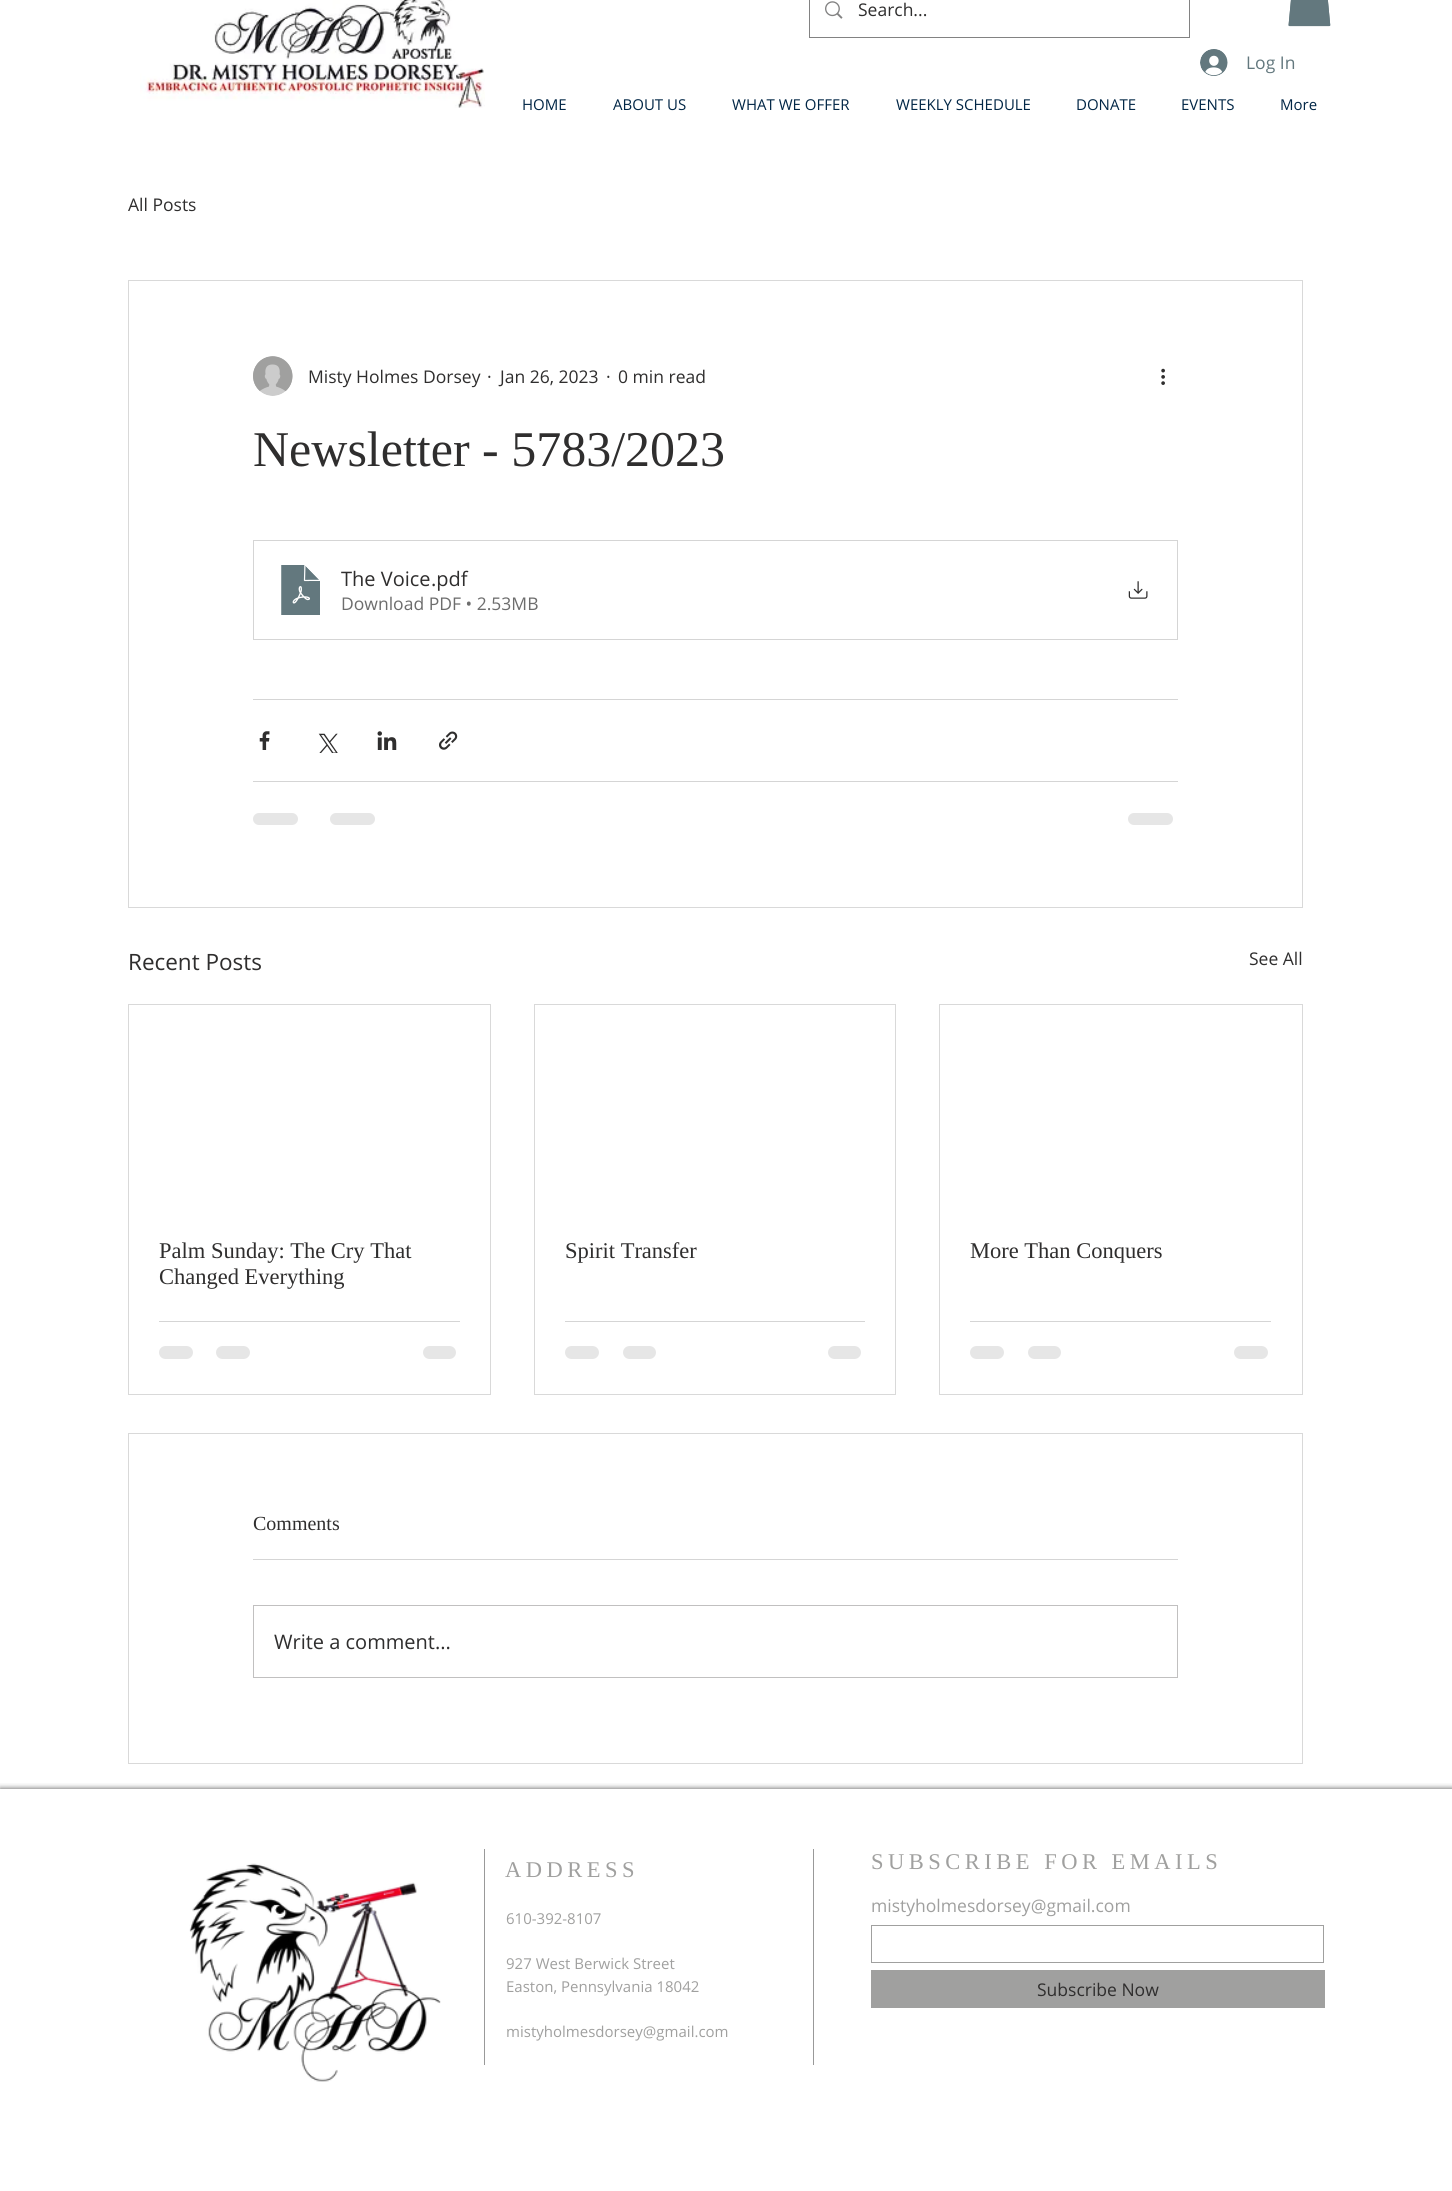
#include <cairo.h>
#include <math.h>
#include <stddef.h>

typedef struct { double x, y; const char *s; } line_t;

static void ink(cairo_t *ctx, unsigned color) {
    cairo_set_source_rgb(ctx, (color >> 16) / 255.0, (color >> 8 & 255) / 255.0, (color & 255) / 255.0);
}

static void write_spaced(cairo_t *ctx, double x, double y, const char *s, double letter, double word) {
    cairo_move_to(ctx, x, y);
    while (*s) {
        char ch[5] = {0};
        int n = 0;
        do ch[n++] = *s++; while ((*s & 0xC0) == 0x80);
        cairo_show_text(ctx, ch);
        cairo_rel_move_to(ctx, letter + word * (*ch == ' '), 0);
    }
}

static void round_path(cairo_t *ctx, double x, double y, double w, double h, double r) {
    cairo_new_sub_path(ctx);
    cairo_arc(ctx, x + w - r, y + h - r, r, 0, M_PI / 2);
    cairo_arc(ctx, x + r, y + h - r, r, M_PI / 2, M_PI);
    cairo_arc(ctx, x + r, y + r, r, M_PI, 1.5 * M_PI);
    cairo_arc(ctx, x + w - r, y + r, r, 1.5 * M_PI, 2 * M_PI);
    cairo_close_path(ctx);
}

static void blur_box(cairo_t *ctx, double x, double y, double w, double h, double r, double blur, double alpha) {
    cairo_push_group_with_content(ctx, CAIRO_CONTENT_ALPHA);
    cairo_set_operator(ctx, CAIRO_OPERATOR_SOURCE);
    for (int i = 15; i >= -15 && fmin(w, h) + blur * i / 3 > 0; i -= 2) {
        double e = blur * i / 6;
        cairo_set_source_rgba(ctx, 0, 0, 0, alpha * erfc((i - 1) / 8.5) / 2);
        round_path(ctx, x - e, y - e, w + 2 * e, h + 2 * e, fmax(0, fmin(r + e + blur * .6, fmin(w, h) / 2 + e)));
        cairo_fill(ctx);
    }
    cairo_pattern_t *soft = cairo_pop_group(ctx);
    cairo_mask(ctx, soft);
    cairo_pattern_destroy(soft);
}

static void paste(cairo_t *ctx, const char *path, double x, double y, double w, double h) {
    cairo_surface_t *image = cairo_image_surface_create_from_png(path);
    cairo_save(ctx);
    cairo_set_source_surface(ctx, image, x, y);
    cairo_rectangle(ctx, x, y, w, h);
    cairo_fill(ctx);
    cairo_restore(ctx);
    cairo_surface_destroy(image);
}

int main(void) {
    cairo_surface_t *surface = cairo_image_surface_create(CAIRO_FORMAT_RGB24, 1452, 2191);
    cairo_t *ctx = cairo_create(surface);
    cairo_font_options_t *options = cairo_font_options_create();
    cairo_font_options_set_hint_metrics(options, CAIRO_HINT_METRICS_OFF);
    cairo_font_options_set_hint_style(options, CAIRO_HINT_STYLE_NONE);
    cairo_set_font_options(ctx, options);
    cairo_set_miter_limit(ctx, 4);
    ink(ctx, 0xFFFFFF);
    cairo_paint(ctx);
    paste(ctx, "media/1.png", 140, 0, 345, 108);
    paste(ctx, "media/2.png", 1288, 0, 43, 27);
    cairo_rectangle(ctx, 809.5, -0.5, 380, 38);
    ink(ctx, 0x828282);
    cairo_set_line_width(ctx, 1);
    cairo_stroke(ctx);
    paste(ctx, "media/3.png", 825, 1, 18, 18);
    cairo_select_font_face(ctx, "Open Sans", CAIRO_FONT_SLANT_NORMAL, CAIRO_FONT_WEIGHT_NORMAL);
    cairo_set_font_size(ctx, 17.5);
    ink(ctx, 0x2F2E2E);
    cairo_move_to(ctx, 858, 16);
    cairo_show_text(ctx, "Search...");
    paste(ctx, "media/4.png", 1288, 0, 43, 27);
    paste(ctx, "media/5.png", 1200, 49, 28, 27);
    ink(ctx, 0x63787E);
    cairo_move_to(ctx, 1246, 69);
    cairo_show_text(ctx, "Log In");
    cairo_set_font_size(ctx, 15);
    ink(ctx, 0x012646);
    {
        static const line_t items[] = {
            {522, 110, "HOME"},
            {613, 110, "ABOUT US"},
            {732, 110, "WHAT WE OFFER"},
            {896, 110, "WEEKLY SCHEDULE"},
            {1076, 110, "DONATE"},
            {1181, 110, "EVENTS"},
            {1280, 110, "More"},
        };
        for (size_t i = 0; i < sizeof items / sizeof *items; i++) {
            cairo_move_to(ctx, items[i].x, items[i].y);
            cairo_show_text(ctx, items[i].s);
        }
    }
    cairo_set_font_size(ctx, 17.5);
    ink(ctx, 0x2F2E2E);
    cairo_move_to(ctx, 128, 211);
    cairo_show_text(ctx, "All Posts");
    cairo_rectangle(ctx, 128.5, 280.5, 1174, 627);
    ink(ctx, 0xD9D9D9);
    cairo_stroke(ctx);
    paste(ctx, "media/6.png", 253, 356, 40, 40);
    ink(ctx, 0x2F2E2E);
    {
        static const line_t items[] = {
            {308, 383, "Misty Holmes Dorsey"},
            {487, 383, "·"},
            {500, 383, "Jan 26, 2023"},
            {606, 383, "·"},
            {618, 383, "0 min read"},
        };
        for (size_t i = 0; i < sizeof items / sizeof *items; i++) {
            cairo_move_to(ctx, items[i].x, items[i].y);
            cairo_show_text(ctx, items[i].s);
        }
    }
    paste(ctx, "media/7.png", 1161, 368, 4, 17);
    cairo_select_font_face(ctx, "Liberation Serif", CAIRO_FONT_SLANT_NORMAL, CAIRO_FONT_WEIGHT_NORMAL);
    cairo_set_font_size(ctx, 50);
    cairo_move_to(ctx, 253, 466);
    cairo_show_text(ctx, "Newsletter - 5783/2023");
    cairo_rectangle(ctx, 253.5, 540.5, 924, 99);
    ink(ctx, 0xD5D5D5);
    cairo_stroke(ctx);
    paste(ctx, "media/8.png", 281, 565, 39, 50);
    cairo_select_font_face(ctx, "Open Sans", CAIRO_FONT_SLANT_NORMAL, CAIRO_FONT_WEIGHT_NORMAL);
    cairo_set_font_size(ctx, 20);
    ink(ctx, 0x2F2E2E);
    cairo_move_to(ctx, 341, 586);
    cairo_show_text(ctx, "The Voice");
    cairo_move_to(ctx, 431, 586);
    cairo_show_text(ctx, ".pdf");
    cairo_set_font_size(ctx, 17.5);
    ink(ctx, 0x6D6D6D);
    cairo_move_to(ctx, 341, 610);
    cairo_show_text(ctx, "Download PDF • 2.53MB");
    paste(ctx, "media/9.png", 1128, 581, 20, 18);
    ink(ctx, 0xD5D5D5);
    cairo_rectangle(ctx, 253, 699, 925, 1);
    cairo_fill(ctx);
    paste(ctx, "media/10.png", 259, 731, 11, 19);
    paste(ctx, "media/11.png", 318, 733, 20, 20);
    paste(ctx, "media/12.png", 377, 731, 20, 19);
    paste(ctx, "media/13.png", 439, 731, 19, 19);
    cairo_rectangle(ctx, 253, 781, 925, 1);
    cairo_fill(ctx);
    ink(ctx, 0xE6E6E6);
    round_path(ctx, 253, 813, 45, 12, 6);
    cairo_fill(ctx);
    round_path(ctx, 330, 813, 45, 12, 6);
    cairo_fill(ctx);
    round_path(ctx, 1128, 813, 45, 12, 6);
    cairo_fill(ctx);
    cairo_set_font_size(ctx, 22.5);
    ink(ctx, 0x2F2E2E);
    cairo_move_to(ctx, 128, 970);
    cairo_show_text(ctx, "Recent Posts");
    cairo_set_font_size(ctx, 17.5);
    cairo_move_to(ctx, 1249, 965);
    cairo_show_text(ctx, "See All");
    cairo_rectangle(ctx, 128.5, 1004.5, 362, 390);
    ink(ctx, 0xD9D9D9);
    cairo_stroke(ctx);
    cairo_select_font_face(ctx, "Liberation Serif", CAIRO_FONT_SLANT_NORMAL, CAIRO_FONT_WEIGHT_NORMAL);
    cairo_set_font_size(ctx, 22.5);
    ink(ctx, 0x2F2E2E);
    cairo_move_to(ctx, 159, 1258);
    cairo_show_text(ctx, "Palm Sunday: The Cry That");
    cairo_move_to(ctx, 159, 1284);
    cairo_show_text(ctx, "Changed Everything");
    ink(ctx, 0xD5D5D5);
    cairo_rectangle(ctx, 159, 1321, 301, 1);
    cairo_fill(ctx);
    ink(ctx, 0xE6E6E6);
    round_path(ctx, 159, 1346, 34, 13, 6.5);
    cairo_fill(ctx);
    round_path(ctx, 216, 1346, 34, 13, 6.5);
    cairo_fill(ctx);
    round_path(ctx, 423, 1346, 33, 13, 6.5);
    cairo_fill(ctx);
    cairo_rectangle(ctx, 534.5, 1004.5, 361, 390);
    ink(ctx, 0xD9D9D9);
    cairo_stroke(ctx);
    ink(ctx, 0x2F2E2E);
    cairo_move_to(ctx, 565, 1258);
    cairo_show_text(ctx, "Spirit Transfer");
    ink(ctx, 0xD5D5D5);
    cairo_rectangle(ctx, 565, 1321, 300, 1);
    cairo_fill(ctx);
    ink(ctx, 0xE6E6E6);
    round_path(ctx, 565, 1346, 34, 13, 6.5);
    cairo_fill(ctx);
    round_path(ctx, 623, 1346, 33, 13, 6.5);
    cairo_fill(ctx);
    round_path(ctx, 828, 1346, 33, 13, 6.5);
    cairo_fill(ctx);
    cairo_rectangle(ctx, 939.5, 1004.5, 363, 390);
    ink(ctx, 0xD9D9D9);
    cairo_stroke(ctx);
    ink(ctx, 0x2F2E2E);
    cairo_move_to(ctx, 970, 1258);
    cairo_show_text(ctx, "More Than Conquers");
    ink(ctx, 0xD5D5D5);
    cairo_rectangle(ctx, 970, 1321, 301, 1);
    cairo_fill(ctx);
    ink(ctx, 0xE6E6E6);
    round_path(ctx, 970, 1346, 34, 13, 6.5);
    cairo_fill(ctx);
    round_path(ctx, 1028, 1346, 33, 13, 6.5);
    cairo_fill(ctx);
    round_path(ctx, 1234, 1346, 34, 13, 6.5);
    cairo_fill(ctx);
    cairo_rectangle(ctx, 128.5, 1433.5, 1174, 330);
    ink(ctx, 0xD9D9D9);
    cairo_stroke(ctx);
    cairo_set_font_size(ctx, 20);
    ink(ctx, 0x2F2E2E);
    cairo_move_to(ctx, 253, 1530);
    cairo_show_text(ctx, "Comments");
    ink(ctx, 0xD5D5D5);
    cairo_rectangle(ctx, 253, 1559, 925, 1);
    cairo_fill(ctx);
    cairo_rectangle(ctx, 253.5, 1605.5, 924, 72);
    ink(ctx, 0xC1C0C0);
    cairo_stroke(ctx);
    cairo_select_font_face(ctx, "Open Sans", CAIRO_FONT_SLANT_NORMAL, CAIRO_FONT_WEIGHT_NORMAL);
    ink(ctx, 0x2F2E2E);
    cairo_move_to(ctx, 274, 1649);
    cairo_show_text(ctx, "Write a comment...");
    cairo_save(ctx);
    cairo_rectangle(ctx, 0, 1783, 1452, 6);
    cairo_clip(ctx);
    ink(ctx, 0x000000);
    blur_box(ctx, 0, 1789, 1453, 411, 0, 3, 0.7);
    cairo_restore(ctx);
    paste(ctx, "media/14.png", 189, 1863, 252, 219);
    ink(ctx, 0x999999);
    cairo_rectangle(ctx, 484, 1849, 1, 216);
    cairo_fill(ctx);
    cairo_select_font_face(ctx, "Liberation Serif", CAIRO_FONT_SLANT_NORMAL, CAIRO_FONT_WEIGHT_NORMAL);
    cairo_set_font_size(ctx, 22.5);
    ink(ctx, 0xA0A09F);
    write_spaced(ctx, 505, 1877, "ADDRESS", 4.5, 0);
    ink(ctx, 0x999999);
    cairo_rectangle(ctx, 813, 1849, 1, 216);
    cairo_fill(ctx);
    ink(ctx, 0xA0A09F);
    write_spaced(ctx, 871, 1869, "SUBSCRIBE FOR EMAILS", 4.5, 0);
    cairo_select_font_face(ctx, "Open Sans", CAIRO_FONT_SLANT_NORMAL, CAIRO_FONT_WEIGHT_NORMAL);
    cairo_set_font_size(ctx, 17.5);
    cairo_move_to(ctx, 871, 1912);
    cairo_show_text(ctx, "mistyholmesdorsey@gmail.com");
    cairo_rectangle(ctx, 871.5, 1925.5, 452, 37);
    cairo_stroke(ctx);
    cairo_rectangle(ctx, 871, 1970, 454, 38);
    cairo_fill(ctx);
    ink(ctx, 0x2F2E2E);
    cairo_move_to(ctx, 1037, 1996);
    cairo_show_text(ctx, "Subscribe Now");
    cairo_set_font_size(ctx, 15);
    ink(ctx, 0xA0A09F);
    {
        static const line_t items[] = {
            {506, 1924, "610-392-8107"},
            {506, 1969, "927 West Berwick Street"},
            {506, 1992, "Easton, Pennsylvania 18042"},
            {506, 2037, "mistyholmesdorsey@gmail.com"},
        };
        for (size_t i = 0; i < sizeof items / sizeof *items; i++) {
            cairo_move_to(ctx, items[i].x, items[i].y);
            cairo_show_text(ctx, items[i].s);
        }
    }
    cairo_surface_write_to_png(surface, "image.png");
    cairo_font_options_destroy(options);
    cairo_destroy(ctx);
    cairo_surface_destroy(surface);
    return 0;
}
